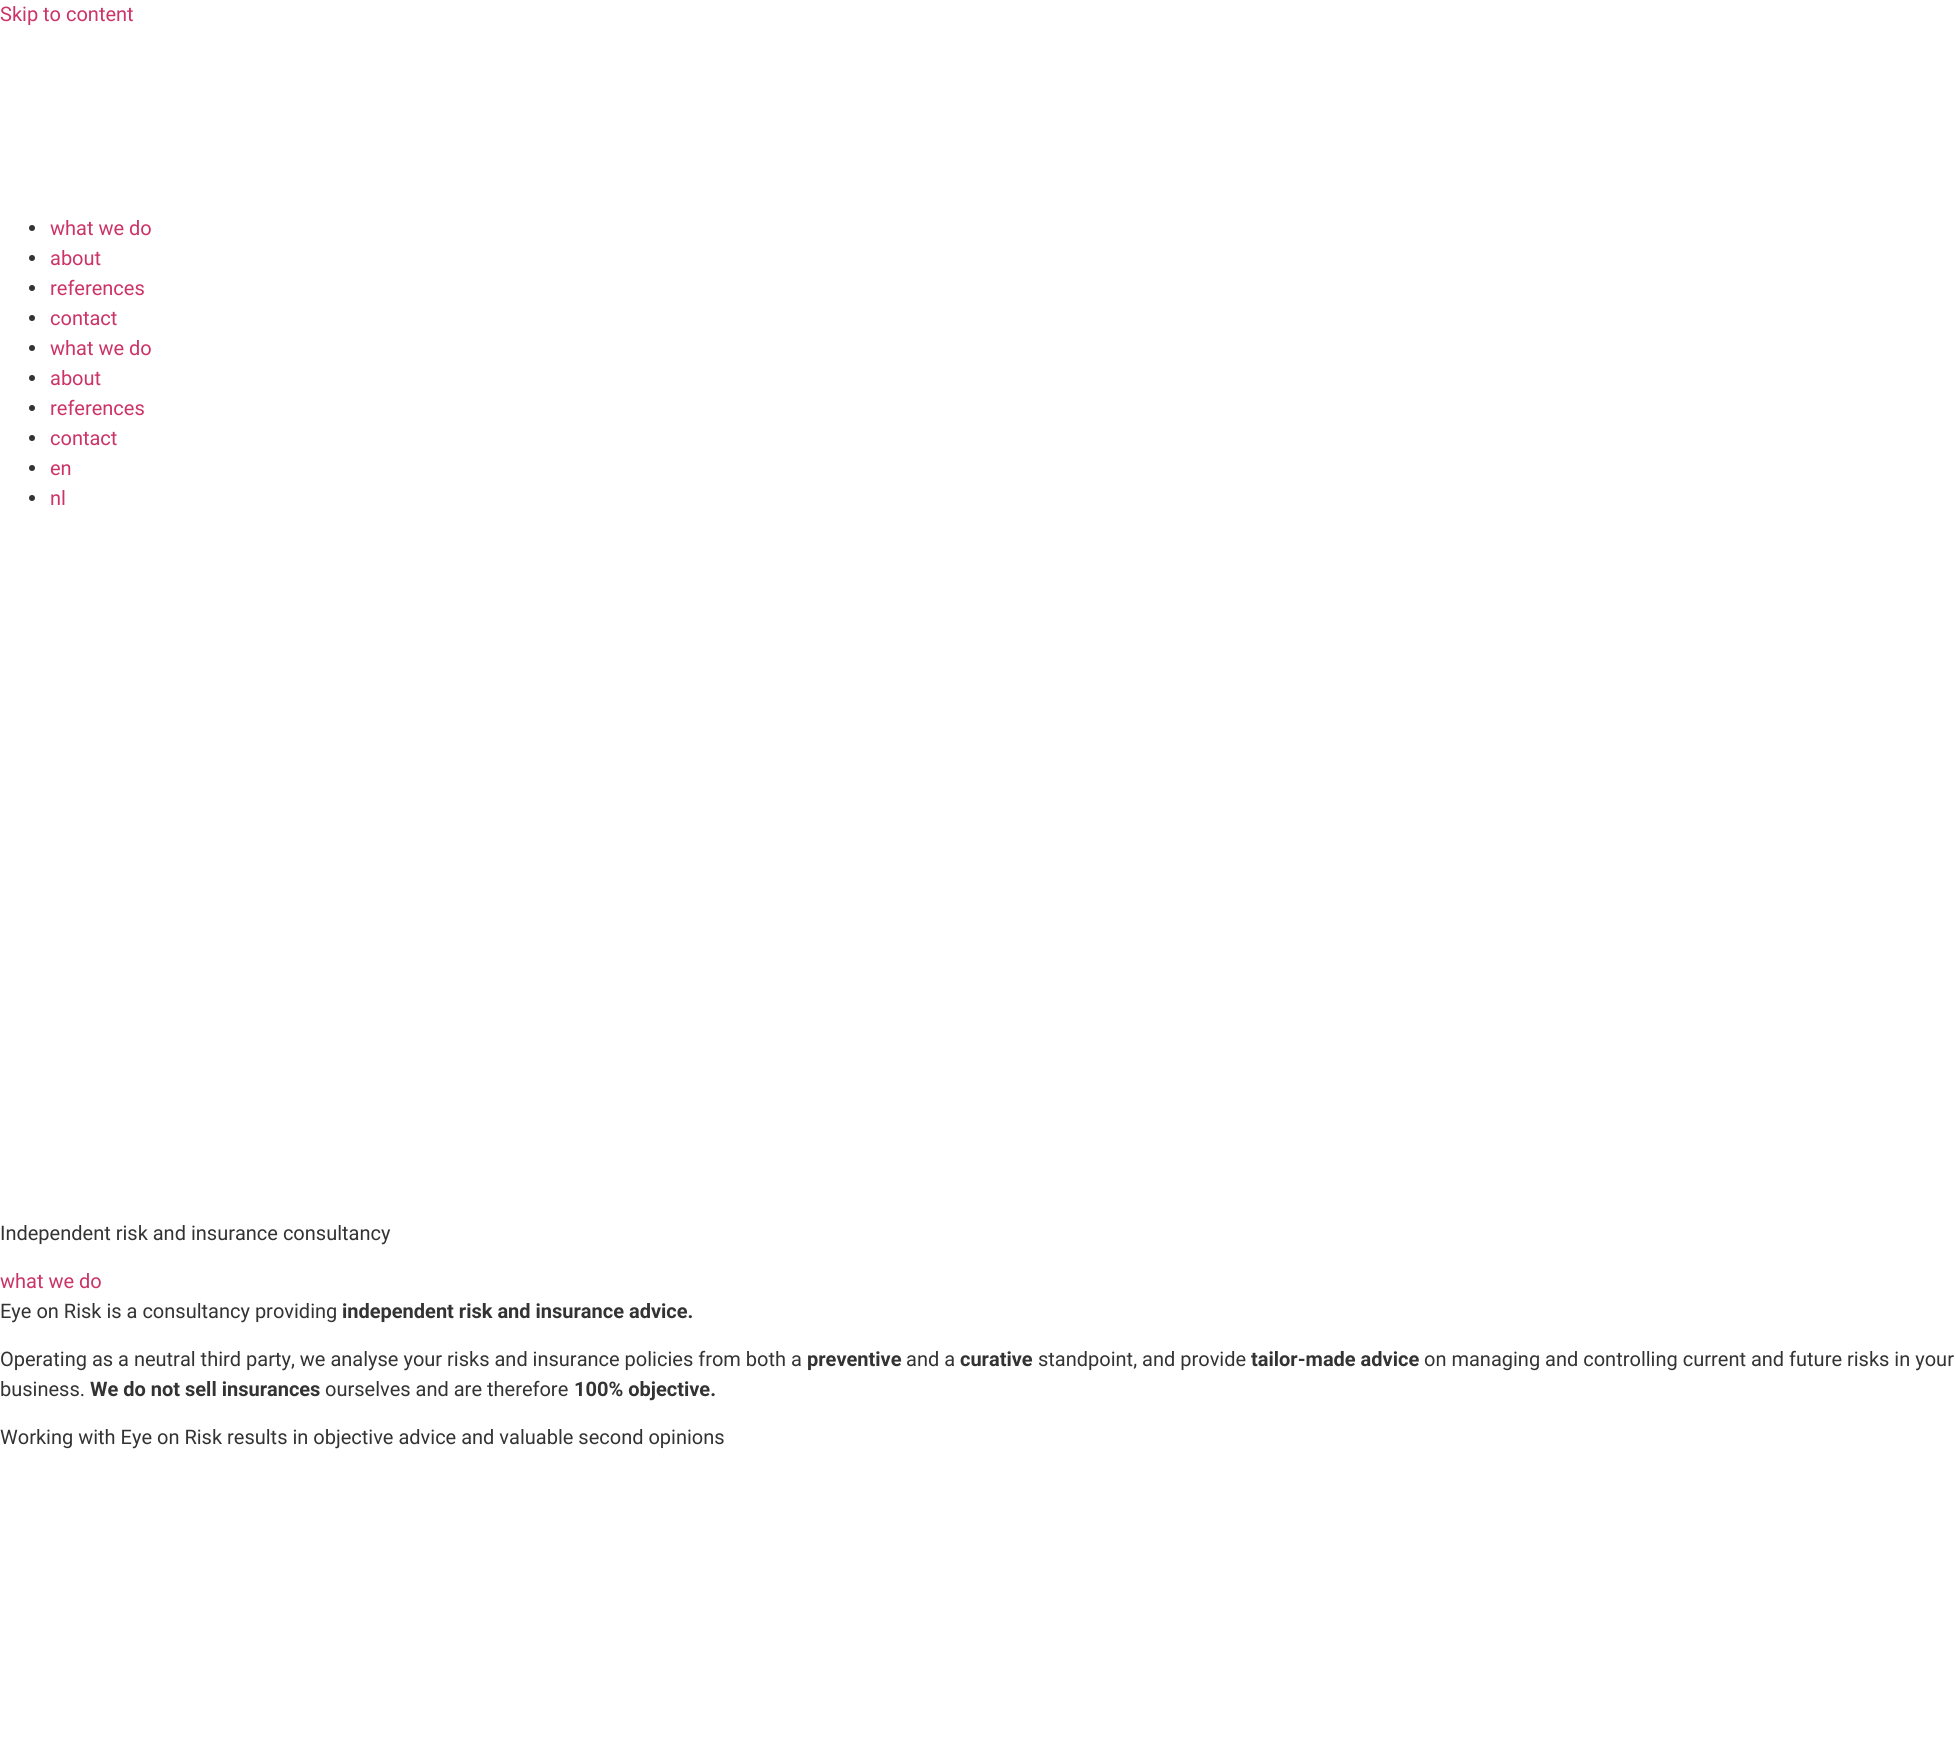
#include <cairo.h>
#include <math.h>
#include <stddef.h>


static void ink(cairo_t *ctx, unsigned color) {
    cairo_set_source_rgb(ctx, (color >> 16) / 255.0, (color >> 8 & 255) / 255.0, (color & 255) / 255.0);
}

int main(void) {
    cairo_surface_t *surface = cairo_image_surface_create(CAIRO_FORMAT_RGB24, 1955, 1759);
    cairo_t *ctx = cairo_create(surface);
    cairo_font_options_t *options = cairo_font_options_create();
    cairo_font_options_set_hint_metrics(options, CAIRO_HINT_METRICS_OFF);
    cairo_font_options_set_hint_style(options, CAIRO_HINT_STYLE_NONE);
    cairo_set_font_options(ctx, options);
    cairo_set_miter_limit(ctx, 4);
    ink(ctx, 0xFFFFFF);
    cairo_paint(ctx);
    cairo_select_font_face(ctx, "Roboto", CAIRO_FONT_SLANT_NORMAL, CAIRO_FONT_WEIGHT_NORMAL);
    cairo_set_font_size(ctx, 20);
    ink(ctx, 0xCC3366);
    cairo_move_to(ctx, 0, 21);
    cairo_show_text(ctx, "Skip to content");
    ink(ctx, 0x333333);
    cairo_new_path(ctx);
    cairo_arc(ctx, 32, 228, 3, 0, 2 * M_PI);
    cairo_fill(ctx);
    ink(ctx, 0xCC3366);
    cairo_move_to(ctx, 50, 235);
    cairo_show_text(ctx, "what we do");
    ink(ctx, 0x333333);
    cairo_new_path(ctx);
    cairo_arc(ctx, 32, 258, 3, 0, 2 * M_PI);
    cairo_fill(ctx);
    ink(ctx, 0xCC3366);
    cairo_move_to(ctx, 50, 265);
    cairo_show_text(ctx, "about");
    ink(ctx, 0x333333);
    cairo_new_path(ctx);
    cairo_arc(ctx, 32, 288, 3, 0, 2 * M_PI);
    cairo_fill(ctx);
    ink(ctx, 0xCC3366);
    cairo_move_to(ctx, 50, 295);
    cairo_show_text(ctx, "references");
    ink(ctx, 0x333333);
    cairo_new_path(ctx);
    cairo_arc(ctx, 32, 318, 3, 0, 2 * M_PI);
    cairo_fill(ctx);
    ink(ctx, 0xCC3366);
    cairo_move_to(ctx, 50, 325);
    cairo_show_text(ctx, "contact");
    ink(ctx, 0x333333);
    cairo_new_path(ctx);
    cairo_arc(ctx, 32, 348, 3, 0, 2 * M_PI);
    cairo_fill(ctx);
    ink(ctx, 0xCC3366);
    cairo_move_to(ctx, 50, 355);
    cairo_show_text(ctx, "what we do");
    ink(ctx, 0x333333);
    cairo_new_path(ctx);
    cairo_arc(ctx, 32, 378, 3, 0, 2 * M_PI);
    cairo_fill(ctx);
    ink(ctx, 0xCC3366);
    cairo_move_to(ctx, 50, 385);
    cairo_show_text(ctx, "about");
    ink(ctx, 0x333333);
    cairo_new_path(ctx);
    cairo_arc(ctx, 32, 408, 3, 0, 2 * M_PI);
    cairo_fill(ctx);
    ink(ctx, 0xCC3366);
    cairo_move_to(ctx, 50, 415);
    cairo_show_text(ctx, "references");
    ink(ctx, 0x333333);
    cairo_new_path(ctx);
    cairo_arc(ctx, 32, 438, 3, 0, 2 * M_PI);
    cairo_fill(ctx);
    ink(ctx, 0xCC3366);
    cairo_move_to(ctx, 50, 445);
    cairo_show_text(ctx, "contact");
    ink(ctx, 0x333333);
    cairo_new_path(ctx);
    cairo_arc(ctx, 32, 468, 3, 0, 2 * M_PI);
    cairo_fill(ctx);
    ink(ctx, 0xCC3366);
    cairo_move_to(ctx, 50, 475);
    cairo_show_text(ctx, "en");
    ink(ctx, 0x333333);
    cairo_new_path(ctx);
    cairo_arc(ctx, 32, 498, 3, 0, 2 * M_PI);
    cairo_fill(ctx);
    ink(ctx, 0xCC3366);
    cairo_move_to(ctx, 50, 505);
    cairo_show_text(ctx, "nl");
    ink(ctx, 0x333333);
    cairo_move_to(ctx, 0, 1240);
    cairo_show_text(ctx, "Independent risk and insurance consultancy");
    ink(ctx, 0xCC3366);
    cairo_move_to(ctx, 0, 1288);
    cairo_show_text(ctx, "what we do");
    ink(ctx, 0x333333);
    cairo_move_to(ctx, 0, 1318);
    cairo_show_text(ctx, "Eye on Risk is a consultancy providing");
    cairo_select_font_face(ctx, "Roboto", CAIRO_FONT_SLANT_NORMAL, CAIRO_FONT_WEIGHT_BOLD);
    cairo_move_to(ctx, 342, 1318);
    cairo_show_text(ctx, "independent risk and insurance advice.");
    cairo_select_font_face(ctx, "Roboto", CAIRO_FONT_SLANT_NORMAL, CAIRO_FONT_WEIGHT_NORMAL);
    cairo_move_to(ctx, 0, 1366);
    cairo_show_text(ctx, "Operating as a neutral third party, we analyse your risks and insurance policies from both a");
    cairo_select_font_face(ctx, "Roboto", CAIRO_FONT_SLANT_NORMAL, CAIRO_FONT_WEIGHT_BOLD);
    cairo_move_to(ctx, 807, 1366);
    cairo_show_text(ctx, "preventive");
    cairo_select_font_face(ctx, "Roboto", CAIRO_FONT_SLANT_NORMAL, CAIRO_FONT_WEIGHT_NORMAL);
    cairo_move_to(ctx, 906, 1366);
    cairo_show_text(ctx, "and a");
    cairo_select_font_face(ctx, "Roboto", CAIRO_FONT_SLANT_NORMAL, CAIRO_FONT_WEIGHT_BOLD);
    cairo_move_to(ctx, 960, 1366);
    cairo_show_text(ctx, "curative");
    cairo_select_font_face(ctx, "Roboto", CAIRO_FONT_SLANT_NORMAL, CAIRO_FONT_WEIGHT_NORMAL);
    cairo_move_to(ctx, 1038, 1366);
    cairo_show_text(ctx, "standpoint, and provide");
    cairo_select_font_face(ctx, "Roboto", CAIRO_FONT_SLANT_NORMAL, CAIRO_FONT_WEIGHT_BOLD);
    cairo_move_to(ctx, 1251, 1366);
    cairo_show_text(ctx, "tailor-made advice");
    cairo_select_font_face(ctx, "Roboto", CAIRO_FONT_SLANT_NORMAL, CAIRO_FONT_WEIGHT_NORMAL);
    cairo_move_to(ctx, 1424, 1366);
    cairo_show_text(ctx, "on managing and controlling current and future risks in your");
    cairo_move_to(ctx, 0, 1396);
    cairo_show_text(ctx, "business.");
    cairo_select_font_face(ctx, "Roboto", CAIRO_FONT_SLANT_NORMAL, CAIRO_FONT_WEIGHT_BOLD);
    cairo_move_to(ctx, 90, 1396);
    cairo_show_text(ctx, "We do not sell insurances");
    cairo_select_font_face(ctx, "Roboto", CAIRO_FONT_SLANT_NORMAL, CAIRO_FONT_WEIGHT_NORMAL);
    cairo_move_to(ctx, 325, 1396);
    cairo_show_text(ctx, "ourselves and are therefore");
    cairo_select_font_face(ctx, "Roboto", CAIRO_FONT_SLANT_NORMAL, CAIRO_FONT_WEIGHT_BOLD);
    cairo_move_to(ctx, 574, 1396);
    cairo_show_text(ctx, "100% objective.");
    cairo_select_font_face(ctx, "Roboto", CAIRO_FONT_SLANT_NORMAL, CAIRO_FONT_WEIGHT_NORMAL);
    cairo_move_to(ctx, 0, 1444);
    cairo_show_text(ctx, "Working with Eye on Risk results in objective advice and valuable second opinions");
    cairo_surface_write_to_png(surface, "image.png");
    cairo_font_options_destroy(options);
    cairo_destroy(ctx);
    cairo_surface_destroy(surface);
    return 0;
}
